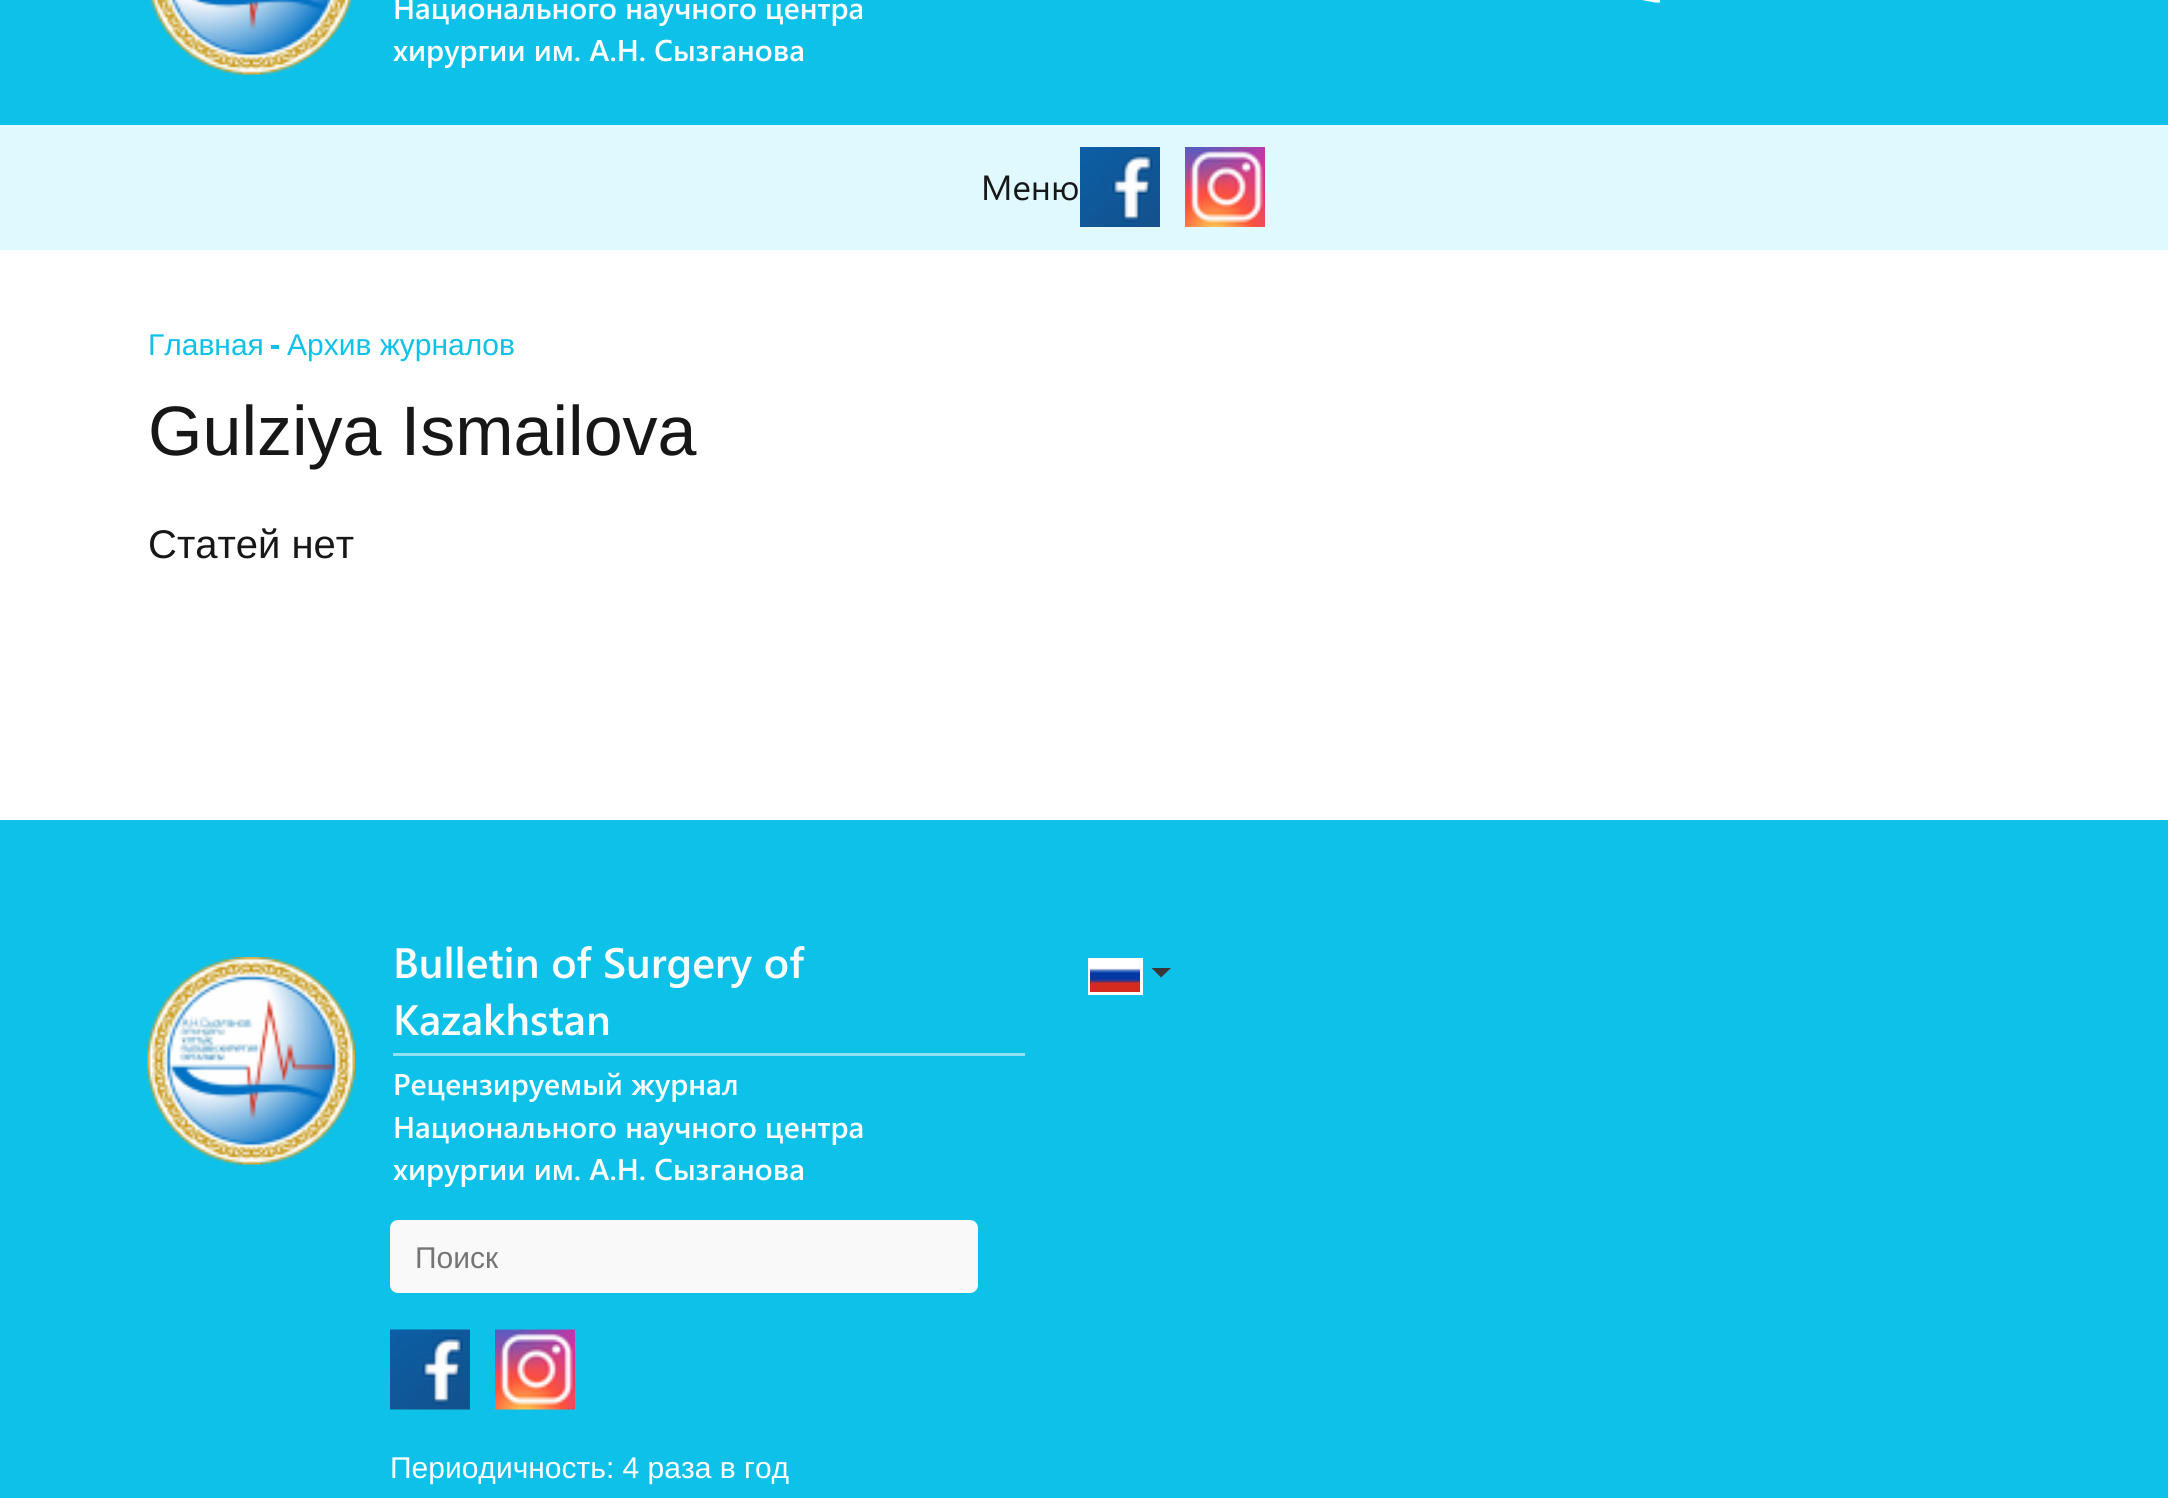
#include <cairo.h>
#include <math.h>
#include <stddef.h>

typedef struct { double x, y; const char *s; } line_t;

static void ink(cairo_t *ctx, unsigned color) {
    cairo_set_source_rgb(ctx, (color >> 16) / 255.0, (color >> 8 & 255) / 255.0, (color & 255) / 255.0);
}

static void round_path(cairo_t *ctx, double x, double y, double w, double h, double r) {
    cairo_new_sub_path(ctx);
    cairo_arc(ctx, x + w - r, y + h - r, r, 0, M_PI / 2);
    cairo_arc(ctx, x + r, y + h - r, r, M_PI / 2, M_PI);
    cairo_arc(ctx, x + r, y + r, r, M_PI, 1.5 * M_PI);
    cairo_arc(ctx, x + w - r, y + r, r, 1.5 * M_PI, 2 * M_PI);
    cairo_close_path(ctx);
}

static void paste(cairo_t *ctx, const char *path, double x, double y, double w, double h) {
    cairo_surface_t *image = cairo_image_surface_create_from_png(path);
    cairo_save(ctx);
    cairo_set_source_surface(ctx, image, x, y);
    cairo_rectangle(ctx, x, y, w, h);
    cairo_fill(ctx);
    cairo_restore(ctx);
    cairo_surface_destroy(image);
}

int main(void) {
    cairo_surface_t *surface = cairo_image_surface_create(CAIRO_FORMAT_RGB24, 2168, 1498);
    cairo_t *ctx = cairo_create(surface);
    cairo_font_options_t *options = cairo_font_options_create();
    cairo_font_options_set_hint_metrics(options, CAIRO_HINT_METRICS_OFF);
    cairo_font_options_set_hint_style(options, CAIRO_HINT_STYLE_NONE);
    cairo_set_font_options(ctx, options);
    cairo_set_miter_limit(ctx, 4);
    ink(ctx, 0xFFFFFF);
    cairo_paint(ctx);
    ink(ctx, 0x0EC1E8);
    cairo_rectangle(ctx, 0, 0, 2168, 125);
    cairo_fill(ctx);
    paste(ctx, "media/1.png", 149, 0, 204, 75);
    cairo_select_font_face(ctx, "Segoe UI SemiBold", CAIRO_FONT_SLANT_NORMAL, CAIRO_FONT_WEIGHT_NORMAL);
    cairo_set_font_size(ctx, 30);
    ink(ctx, 0xFFFFFF);
    cairo_move_to(ctx, 393, 19);
    cairo_show_text(ctx, "Национального научного центра");
    cairo_move_to(ctx, 393, 61);
    cairo_show_text(ctx, "хирургии им. А.Н. Сызганова");
    paste(ctx, "media/2.png", 1642, 0, 18, 3);
    ink(ctx, 0xDFF9FF);
    cairo_rectangle(ctx, 0, 125, 2168, 125);
    cairo_fill(ctx);
    cairo_select_font_face(ctx, "Segoe UI", CAIRO_FONT_SLANT_NORMAL, CAIRO_FONT_WEIGHT_NORMAL);
    cairo_set_font_size(ctx, 35);
    ink(ctx, 0x171717);
    cairo_move_to(ctx, 981, 200);
    cairo_show_text(ctx, "Меню");
    paste(ctx, "media/3.png", 1080, 147, 80, 80);
    paste(ctx, "media/4.png", 1185, 147, 80, 80);
    cairo_select_font_face(ctx, "Liberation Sans", CAIRO_FONT_SLANT_NORMAL, CAIRO_FONT_WEIGHT_NORMAL);
    cairo_set_font_size(ctx, 30);
    ink(ctx, 0x0EC1E8);
    cairo_move_to(ctx, 148, 355);
    cairo_show_text(ctx, "Главная");
    cairo_rectangle(ctx, 271, 345, 8, 4);
    cairo_fill(ctx);
    cairo_move_to(ctx, 287, 355);
    cairo_show_text(ctx, "Архив журналов");
    cairo_set_font_size(ctx, 70);
    ink(ctx, 0x171717);
    cairo_move_to(ctx, 148, 455);
    cairo_show_text(ctx, "Gulziya Ismailova");
    cairo_set_font_size(ctx, 40);
    cairo_move_to(ctx, 148, 558);
    cairo_show_text(ctx, "Статей нет");
    ink(ctx, 0x0EC1E8);
    cairo_rectangle(ctx, 0, 820, 2168, 678);
    cairo_fill(ctx);
    paste(ctx, "media/5.png", 147, 957, 208, 208);
    ink(ctx, 0x90E1F3);
    cairo_rectangle(ctx, 393, 1053, 632, 3);
    cairo_fill(ctx);
    cairo_select_font_face(ctx, "Segoe UI SemiBold", CAIRO_FONT_SLANT_NORMAL, CAIRO_FONT_WEIGHT_NORMAL);
    cairo_set_font_size(ctx, 42.5);
    ink(ctx, 0xFFFFFF);
    cairo_move_to(ctx, 393, 978);
    cairo_show_text(ctx, "Bulletin of Surgery of");
    cairo_move_to(ctx, 393, 1035);
    cairo_show_text(ctx, "Kazakhstan");
    cairo_set_font_size(ctx, 30);
    {
        static const line_t items[] = {
            {393, 1095, "Рецензируемый журнал"},
            {393, 1138, "Национального научного центра"},
            {393, 1180, "хирургии им. А.Н. Сызганова"},
        };
        for (size_t i = 0; i < sizeof items / sizeof *items; i++) {
            cairo_move_to(ctx, items[i].x, items[i].y);
            cairo_show_text(ctx, items[i].s);
        }
    }
    ink(ctx, 0x383838);
    cairo_new_path(ctx);
    cairo_move_to(ctx, 1161, 977.5);
    cairo_line_to(ctx, 1151.5, 968);
    cairo_line_to(ctx, 1171, 968);
    cairo_close_path(ctx);
    cairo_fill(ctx);
    cairo_rectangle(ctx, 1089.5, 959.5, 52, 34);
    ink(ctx, 0xFFFFFF);
    cairo_set_line_width(ctx, 3);
    cairo_stroke(ctx);
    paste(ctx, "media/6.png", 1090, 961, 50, 31);
    ink(ctx, 0xF9F9F9);
    round_path(ctx, 390, 1220, 588, 73, 8);
    cairo_fill(ctx);
    cairo_select_font_face(ctx, "Liberation Sans", CAIRO_FONT_SLANT_NORMAL, CAIRO_FONT_WEIGHT_NORMAL);
    ink(ctx, 0x757575);
    cairo_move_to(ctx, 415, 1268);
    cairo_show_text(ctx, "Поиск");
    paste(ctx, "media/7.png", 390, 1329, 80, 81);
    paste(ctx, "media/8.png", 495, 1329, 80, 81);
    ink(ctx, 0xFFFFFF);
    cairo_move_to(ctx, 390, 1478);
    cairo_show_text(ctx, "Периодичность: 4 раза в год");
    cairo_surface_write_to_png(surface, "image.png");
    cairo_font_options_destroy(options);
    cairo_destroy(ctx);
    cairo_surface_destroy(surface);
    return 0;
}
